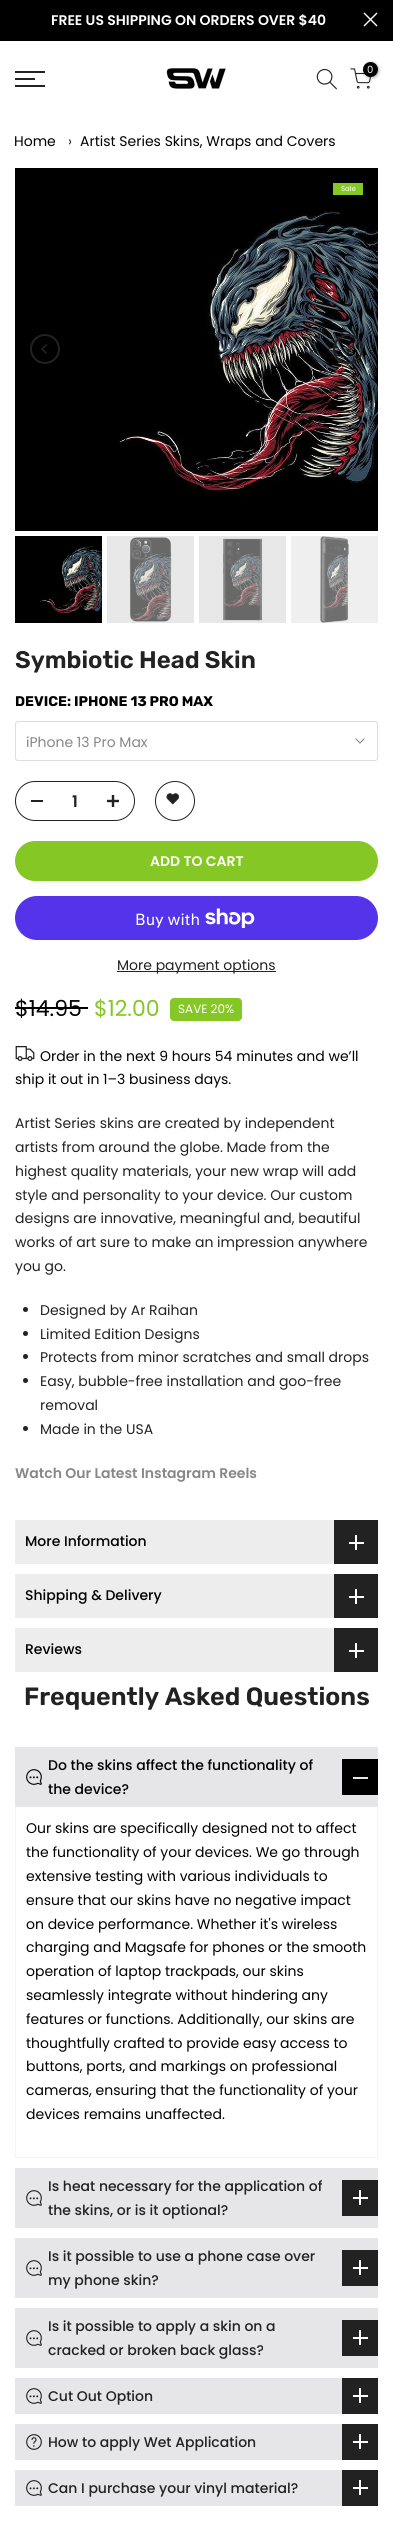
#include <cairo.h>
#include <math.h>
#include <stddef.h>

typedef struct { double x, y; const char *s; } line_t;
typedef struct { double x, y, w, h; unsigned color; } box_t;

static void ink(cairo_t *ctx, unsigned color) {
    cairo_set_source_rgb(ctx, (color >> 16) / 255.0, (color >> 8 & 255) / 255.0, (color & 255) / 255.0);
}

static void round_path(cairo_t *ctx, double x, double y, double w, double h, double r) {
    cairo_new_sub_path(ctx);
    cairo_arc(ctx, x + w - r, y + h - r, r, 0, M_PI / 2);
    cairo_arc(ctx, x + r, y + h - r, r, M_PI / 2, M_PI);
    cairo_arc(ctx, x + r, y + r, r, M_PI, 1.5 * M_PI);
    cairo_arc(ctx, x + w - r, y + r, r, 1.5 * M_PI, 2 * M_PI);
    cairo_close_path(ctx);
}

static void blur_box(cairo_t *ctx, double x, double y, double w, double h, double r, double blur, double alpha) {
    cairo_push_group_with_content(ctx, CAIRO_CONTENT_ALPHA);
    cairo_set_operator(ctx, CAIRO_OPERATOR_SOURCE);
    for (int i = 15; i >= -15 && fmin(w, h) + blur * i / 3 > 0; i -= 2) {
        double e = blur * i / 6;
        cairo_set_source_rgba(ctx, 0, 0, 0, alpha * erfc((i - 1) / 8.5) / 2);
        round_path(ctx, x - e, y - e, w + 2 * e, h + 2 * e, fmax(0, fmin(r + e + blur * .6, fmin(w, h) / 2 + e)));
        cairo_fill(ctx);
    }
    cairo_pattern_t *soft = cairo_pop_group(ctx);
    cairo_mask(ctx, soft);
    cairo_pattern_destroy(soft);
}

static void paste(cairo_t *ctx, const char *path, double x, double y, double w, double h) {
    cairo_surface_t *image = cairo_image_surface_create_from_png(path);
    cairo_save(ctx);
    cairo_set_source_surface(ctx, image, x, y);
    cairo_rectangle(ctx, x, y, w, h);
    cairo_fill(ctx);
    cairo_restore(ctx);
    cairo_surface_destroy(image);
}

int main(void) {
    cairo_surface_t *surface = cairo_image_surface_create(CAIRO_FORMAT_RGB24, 393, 2524);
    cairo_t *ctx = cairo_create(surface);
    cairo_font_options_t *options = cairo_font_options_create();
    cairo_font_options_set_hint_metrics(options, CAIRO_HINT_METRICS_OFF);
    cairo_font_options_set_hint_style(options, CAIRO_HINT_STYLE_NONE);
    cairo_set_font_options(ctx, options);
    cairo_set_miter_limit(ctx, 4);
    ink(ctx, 0xFFFFFF);
    cairo_paint(ctx);
    ink(ctx, 0x000000);
    cairo_rectangle(ctx, 0, 0, 393, 41);
    cairo_fill(ctx);
    cairo_select_font_face(ctx, "Poppins SemiBold", CAIRO_FONT_SLANT_NORMAL, CAIRO_FONT_WEIGHT_NORMAL);
    cairo_set_font_size(ctx, 14);
    ink(ctx, 0xFFFFFF);
    cairo_move_to(ctx, 51, 25);
    cairo_show_text(ctx, "FREE US SHIPPING ON ORDERS OVER $40");
    cairo_new_path(ctx);
    cairo_move_to(ctx, 377, 13);
    cairo_line_to(ctx, 364, 26);
    cairo_move_to(ctx, 377, 26);
    cairo_line_to(ctx, 364, 13);
    cairo_set_line_width(ctx, 1.4);
    cairo_stroke(ctx);
    {
        static const box_t items[] = {
            {15, 71, 30, 2, 0x222222},
            {15, 78, 20, 2, 0x222222},
            {15, 85, 30, 2, 0x222222},
        };
        for (size_t i = 0; i < sizeof items / sizeof *items; i++) {
            ink(ctx, items[i].color);
            cairo_rectangle(ctx, items[i].x, items[i].y, items[i].w, items[i].h);
            cairo_fill(ctx);
        }
    }
    paste(ctx, "media/1.png", 166, 68, 60, 21);
    paste(ctx, "media/2.png", 316, 68, 21, 22);
    paste(ctx, "media/3.png", 350, 68, 22, 21);
    ink(ctx, 0x000000);
    blur_box(ctx, 364, 63, 15, 15, 7.5, 1.5, 0.3);
    ink(ctx, 0x000000);
    cairo_arc(ctx, 370.5, 69.5, 7.5, 0, 2 * M_PI);
    cairo_fill(ctx);
    cairo_select_font_face(ctx, "Poppins", CAIRO_FONT_SLANT_NORMAL, CAIRO_FONT_WEIGHT_NORMAL);
    cairo_set_font_size(ctx, 10);
    ink(ctx, 0xFFFFFF);
    cairo_move_to(ctx, 367, 73);
    cairo_show_text(ctx, "0");
    cairo_set_font_size(ctx, 14);
    ink(ctx, 0x000000);
    cairo_move_to(ctx, 14, 146);
    cairo_show_text(ctx, "Home");
    ink(ctx, 0x222222);
    cairo_move_to(ctx, 68, 146);
    cairo_show_text(ctx, "›");
    ink(ctx, 0x000000);
    cairo_move_to(ctx, 80, 146);
    cairo_show_text(ctx, "Artist Series Skins, Wraps and Covers");
    paste(ctx, "media/4.png", 15, 168, 363, 363);
    cairo_arc(ctx, 45, 349, 14, 0, 2 * M_PI);
    ink(ctx, 0x222222);
    cairo_set_line_width(ctx, 2);
    cairo_stroke(ctx);
    paste(ctx, "media/5.png", 41, 344, 6, 10);
    cairo_arc(ctx, 348, 349, 14, 0, 2 * M_PI);
    cairo_stroke(ctx);
    paste(ctx, "media/6.png", 346, 344, 6, 10);
    ink(ctx, 0x85C725);
    cairo_rectangle(ctx, 333, 183, 30, 12);
    cairo_fill(ctx);
    cairo_set_font_size(ctx, 7);
    ink(ctx, 0xFFFFFF);
    cairo_move_to(ctx, 341, 191);
    cairo_show_text(ctx, "Sale");
    paste(ctx, "media/7.png", 15, 536, 87, 87);
    ink(ctx, 0xD0D0D0);
    cairo_rectangle(ctx, 107, 536, 87, 87);
    cairo_fill(ctx);
    paste(ctx, "media/8.png", 107, 536, 87, 87);
    cairo_rectangle(ctx, 199, 536, 87, 87);
    cairo_fill(ctx);
    paste(ctx, "media/9.png", 199, 536, 87, 87);
    ink(ctx, 0xDEDEDE);
    cairo_rectangle(ctx, 291, 536, 87, 87);
    cairo_fill(ctx);
    paste(ctx, "media/10.png", 291, 536, 87, 87);
    cairo_select_font_face(ctx, "Rubik SemiBold", CAIRO_FONT_SLANT_NORMAL, CAIRO_FONT_WEIGHT_NORMAL);
    cairo_set_font_size(ctx, 24);
    ink(ctx, 0x222222);
    cairo_move_to(ctx, 15, 668);
    cairo_show_text(ctx, "Symbiotic Head Skin");
    cairo_select_font_face(ctx, "Rubik", CAIRO_FONT_SLANT_NORMAL, CAIRO_FONT_WEIGHT_BOLD);
    cairo_set_font_size(ctx, 14);
    ink(ctx, 0x000000);
    cairo_move_to(ctx, 15, 706);
    cairo_show_text(ctx, "DEVICE: IPHONE 13 PRO MAX");
    round_path(ctx, 15.5, 721.5, 362, 39, 2.5);
    ink(ctx, 0xDDDDDD);
    cairo_set_line_width(ctx, 1);
    cairo_stroke(ctx);
    cairo_select_font_face(ctx, "Poppins", CAIRO_FONT_SLANT_NORMAL, CAIRO_FONT_WEIGHT_NORMAL);
    ink(ctx, 0x878787);
    cairo_move_to(ctx, 26, 747);
    cairo_show_text(ctx, "iPhone 13 Pro Max");
    cairo_new_path(ctx);
    cairo_move_to(ctx, 364, 739);
    cairo_line_to(ctx, 360, 743);
    cairo_line_to(ctx, 356, 739);
    cairo_set_line_width(ctx, 1.1);
    cairo_set_line_cap(ctx, CAIRO_LINE_CAP_SQUARE);
    cairo_stroke(ctx);
    round_path(ctx, 15.5, 781.5, 119, 39, 19.5);
    ink(ctx, 0x222222);
    cairo_set_line_width(ctx, 1);
    cairo_set_line_cap(ctx, CAIRO_LINE_CAP_BUTT);
    cairo_stroke(ctx);
    cairo_rectangle(ctx, 31, 800, 12, 2);
    cairo_fill(ctx);
    cairo_select_font_face(ctx, "Poppins SemiBold", CAIRO_FONT_SLANT_NORMAL, CAIRO_FONT_WEIGHT_NORMAL);
    cairo_set_font_size(ctx, 16);
    cairo_move_to(ctx, 72, 807);
    cairo_show_text(ctx, "1");
    paste(ctx, "media/11.png", 107, 795, 12, 12);
    cairo_arc(ctx, 175, 801, 19.5, 0, 2 * M_PI);
    cairo_stroke(ctx);
    paste(ctx, "media/12.png", 166, 793, 13, 12);
    ink(ctx, 0x85C725);
    round_path(ctx, 15, 841, 363, 40, 20);
    cairo_fill(ctx);
    cairo_set_font_size(ctx, 14);
    ink(ctx, 0xFFFFFF);
    cairo_move_to(ctx, 150, 866);
    cairo_show_text(ctx, "ADD TO CART");
    ink(ctx, 0x5433EB);
    round_path(ctx, 15, 896, 363, 44, 22);
    cairo_fill(ctx);
    cairo_select_font_face(ctx, "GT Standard", CAIRO_FONT_SLANT_NORMAL, CAIRO_FONT_WEIGHT_NORMAL);
    cairo_set_font_size(ctx, 16);
    ink(ctx, 0xFFFFFF);
    cairo_move_to(ctx, 135, 925);
    cairo_show_text(ctx, "Buy with");
    paste(ctx, "media/13.png", 205, 908, 50, 20);
    ink(ctx, 0x222222);
    cairo_rectangle(ctx, 117, 971, 159, 1);
    cairo_fill(ctx);
    cairo_select_font_face(ctx, "Poppins", CAIRO_FONT_SLANT_NORMAL, CAIRO_FONT_WEIGHT_NORMAL);
    cairo_set_font_size(ctx, 14);
    cairo_move_to(ctx, 117, 970);
    cairo_show_text(ctx, "More payment options");
    cairo_set_font_size(ctx, 22);
    ink(ctx, 0x000000);
    cairo_move_to(ctx, 15, 1016);
    cairo_show_text(ctx, "$14.95");
    cairo_rectangle(ctx, 15, 1007, 73, 2);
    cairo_fill(ctx);
    ink(ctx, 0x85C725);
    cairo_move_to(ctx, 94, 1016);
    cairo_show_text(ctx, "$12.00");
    round_path(ctx, 170, 998, 72, 23, 4);
    cairo_fill(ctx);
    cairo_set_font_size(ctx, 12);
    ink(ctx, 0xFFFFFF);
    cairo_move_to(ctx, 178, 1013);
    cairo_show_text(ctx, "SAVE 20%");
    paste(ctx, "media/14.png", 15, 1046, 20, 15);
    cairo_set_font_size(ctx, 14);
    ink(ctx, 0x000000);
    cairo_move_to(ctx, 40, 1061);
    cairo_show_text(ctx, "Order in the next 9 hours 54 minutes and we’ll");
    cairo_move_to(ctx, 15, 1084);
    cairo_show_text(ctx, "ship it out in 1–3 business days.");
    ink(ctx, 0x222222);
    {
        static const line_t items[] = {
            {15, 1128, "Artist Series skins are created by independent"},
            {15, 1152, "artists from around the globe. Made from the"},
            {15, 1176, "highest quality materials, your new wrap will add"},
            {15, 1200, "style and personality to your device. Our custom"},
            {15, 1223, "designs are innovative, meaningful and, beautiful"},
            {15, 1247, "works of art sure to make an impression anywhere"},
            {15, 1271, "you go."},
        };
        for (size_t i = 0; i < sizeof items / sizeof *items; i++) {
            cairo_move_to(ctx, items[i].x, items[i].y);
            cairo_show_text(ctx, items[i].s);
        }
    }
    cairo_new_path(ctx);
    cairo_arc(ctx, 25.5, 1309.5, 2.5, 0, 2 * M_PI);
    cairo_fill(ctx);
    cairo_move_to(ctx, 40, 1315);
    cairo_show_text(ctx, "Designed by Ar Raihan");
    cairo_new_path(ctx);
    cairo_arc(ctx, 25.5, 1333.5, 2.5, 0, 2 * M_PI);
    cairo_fill(ctx);
    cairo_move_to(ctx, 40, 1339);
    cairo_show_text(ctx, "Limited Edition Designs");
    cairo_new_path(ctx);
    cairo_arc(ctx, 25.5, 1356.5, 2.5, 0, 2 * M_PI);
    cairo_fill(ctx);
    cairo_move_to(ctx, 40, 1362);
    cairo_show_text(ctx, "Protects from minor scratches and small drops");
    cairo_new_path(ctx);
    cairo_arc(ctx, 25.5, 1380.5, 2.5, 0, 2 * M_PI);
    cairo_fill(ctx);
    cairo_move_to(ctx, 40, 1386);
    cairo_show_text(ctx, "Easy, bubble-free installation and goo-free");
    cairo_move_to(ctx, 40, 1410);
    cairo_show_text(ctx, "removal");
    cairo_new_path(ctx);
    cairo_arc(ctx, 25.5, 1428.5, 2.5, 0, 2 * M_PI);
    cairo_fill(ctx);
    cairo_move_to(ctx, 40, 1434);
    cairo_show_text(ctx, "Made in the USA");
    cairo_select_font_face(ctx, "Poppins SemiBold", CAIRO_FONT_SLANT_NORMAL, CAIRO_FONT_WEIGHT_NORMAL);
    ink(ctx, 0x878787);
    cairo_move_to(ctx, 15, 1478);
    cairo_show_text(ctx, "Watch Our Latest Instagram Reels");
    ink(ctx, 0xEDEDED);
    cairo_rectangle(ctx, 15, 1520, 319, 44);
    cairo_fill(ctx);
    cairo_select_font_face(ctx, "Poppins Medium", CAIRO_FONT_SLANT_NORMAL, CAIRO_FONT_WEIGHT_NORMAL);
    ink(ctx, 0x000000);
    cairo_move_to(ctx, 25, 1546);
    cairo_show_text(ctx, "More Information");
    {
        static const box_t items[] = {
            {334, 1520, 44, 44, 0x222222},
            {355, 1535, 2, 15, 0xFFFFFF},
            {349, 1542, 15, 2, 0xFFFFFF},
            {15, 1574, 319, 44, 0xEDEDED},
        };
        for (size_t i = 0; i < sizeof items / sizeof *items; i++) {
            ink(ctx, items[i].color);
            cairo_rectangle(ctx, items[i].x, items[i].y, items[i].w, items[i].h);
            cairo_fill(ctx);
        }
    }
    ink(ctx, 0x000000);
    cairo_move_to(ctx, 25, 1600);
    cairo_show_text(ctx, "Shipping & Delivery");
    {
        static const box_t items[] = {
            {334, 1574, 44, 44, 0x222222},
            {355, 1589, 2, 15, 0xFFFFFF},
            {349, 1596, 15, 2, 0xFFFFFF},
            {15, 1628, 319, 44, 0xEDEDED},
        };
        for (size_t i = 0; i < sizeof items / sizeof *items; i++) {
            ink(ctx, items[i].color);
            cairo_rectangle(ctx, items[i].x, items[i].y, items[i].w, items[i].h);
            cairo_fill(ctx);
        }
    }
    ink(ctx, 0x000000);
    cairo_move_to(ctx, 25, 1654);
    cairo_show_text(ctx, "Reviews");
    {
        static const box_t items[] = {
            {334, 1628, 44, 44, 0x222222},
            {355, 1643, 2, 15, 0xFFFFFF},
            {349, 1650, 15, 2, 0xFFFFFF},
        };
        for (size_t i = 0; i < sizeof items / sizeof *items; i++) {
            ink(ctx, items[i].color);
            cairo_rectangle(ctx, items[i].x, items[i].y, items[i].w, items[i].h);
            cairo_fill(ctx);
        }
    }
    cairo_select_font_face(ctx, "Rubik SemiBold", CAIRO_FONT_SLANT_NORMAL, CAIRO_FONT_WEIGHT_NORMAL);
    cairo_set_font_size(ctx, 25);
    ink(ctx, 0x222222);
    cairo_move_to(ctx, 24, 1705);
    cairo_show_text(ctx, "Frequently Asked Questions");
    ink(ctx, 0xE6E6E8);
    cairo_rectangle(ctx, 15, 1747, 363, 60);
    cairo_fill(ctx);
    cairo_select_font_face(ctx, "Poppins Medium", CAIRO_FONT_SLANT_NORMAL, CAIRO_FONT_WEIGHT_NORMAL);
    cairo_set_font_size(ctx, 14);
    ink(ctx, 0x000000);
    cairo_move_to(ctx, 48, 1770);
    cairo_show_text(ctx, "Do the skins affect the functionality of");
    paste(ctx, "media/15.png", 26, 1769, 16, 16);
    cairo_move_to(ctx, 48, 1794);
    cairo_show_text(ctx, "the device?");
    {
        static const box_t items[] = {
            {342, 1759, 36, 36, 0x000000},
            {353, 1777, 15, 2, 0xE6E6E8},
            {377, 1807, 1, 351, 0xF5F5F5},
            {15, 2157, 363, 1, 0xF5F5F5},
            {15, 1807, 1, 351, 0xF5F5F5},
        };
        for (size_t i = 0; i < sizeof items / sizeof *items; i++) {
            ink(ctx, items[i].color);
            cairo_rectangle(ctx, items[i].x, items[i].y, items[i].w, items[i].h);
            cairo_fill(ctx);
        }
    }
    cairo_select_font_face(ctx, "Poppins", CAIRO_FONT_SLANT_NORMAL, CAIRO_FONT_WEIGHT_NORMAL);
    ink(ctx, 0x000000);
    {
        static const line_t items[] = {
            {26, 1833, "Our skins are specifically designed not to affect"},
            {26, 1857, "the functionality of your devices. We go through"},
            {26, 1881, "extensive testing with various individuals to"},
            {26, 1905, "ensure that our skins have no negative impact"},
            {26, 1929, "on device performance. Whether it's wireless"},
            {26, 1952, "charging and Magsafe for phones or the smooth"},
            {26, 1976, "operation of laptop trackpads, our skins"},
            {26, 2000, "seamlessly integrate without hindering any"},
            {26, 2024, "features or functions. Additionally, our skins are"},
            {26, 2048, "thoughtfully crafted to provide easy access to"},
            {26, 2071, "buttons, ports, and markings on professional"},
            {26, 2095, "cameras, ensuring that the functionality of your"},
            {26, 2119, "devices remains unaffected."},
        };
        for (size_t i = 0; i < sizeof items / sizeof *items; i++) {
            cairo_move_to(ctx, items[i].x, items[i].y);
            cairo_show_text(ctx, items[i].s);
        }
    }
    ink(ctx, 0xE6E6E8);
    cairo_rectangle(ctx, 15, 2168, 363, 60);
    cairo_fill(ctx);
    cairo_select_font_face(ctx, "Poppins Medium", CAIRO_FONT_SLANT_NORMAL, CAIRO_FONT_WEIGHT_NORMAL);
    ink(ctx, 0x222222);
    cairo_move_to(ctx, 48, 2191);
    cairo_show_text(ctx, "Is heat necessary for the application of");
    paste(ctx, "media/16.png", 26, 2190, 16, 16);
    cairo_move_to(ctx, 48, 2215);
    cairo_show_text(ctx, "the skins, or is it optional?");
    {
        static const box_t items[] = {
            {342, 2180, 36, 36, 0x222222},
            {359, 2190, 2, 15, 0xFFFFFF},
            {353, 2197, 15, 2, 0xFFFFFF},
            {15, 2238, 363, 60, 0xE6E6E8},
        };
        for (size_t i = 0; i < sizeof items / sizeof *items; i++) {
            ink(ctx, items[i].color);
            cairo_rectangle(ctx, items[i].x, items[i].y, items[i].w, items[i].h);
            cairo_fill(ctx);
        }
    }
    ink(ctx, 0x222222);
    cairo_move_to(ctx, 48, 2261);
    cairo_show_text(ctx, "Is it possible to use a phone case over");
    paste(ctx, "media/16.png", 26, 2260, 16, 16);
    cairo_move_to(ctx, 48, 2285);
    cairo_show_text(ctx, "my phone skin?");
    {
        static const box_t items[] = {
            {342, 2250, 36, 36, 0x222222},
            {359, 2260, 2, 15, 0xFFFFFF},
            {353, 2267, 15, 2, 0xFFFFFF},
            {15, 2308, 363, 60, 0xE6E6E8},
        };
        for (size_t i = 0; i < sizeof items / sizeof *items; i++) {
            ink(ctx, items[i].color);
            cairo_rectangle(ctx, items[i].x, items[i].y, items[i].w, items[i].h);
            cairo_fill(ctx);
        }
    }
    ink(ctx, 0x222222);
    cairo_move_to(ctx, 48, 2331);
    cairo_show_text(ctx, "Is it possible to apply a skin on a");
    paste(ctx, "media/16.png", 26, 2330, 16, 16);
    cairo_move_to(ctx, 48, 2355);
    cairo_show_text(ctx, "cracked or broken back glass?");
    {
        static const box_t items[] = {
            {342, 2320, 36, 36, 0x222222},
            {359, 2330, 2, 15, 0xFFFFFF},
            {353, 2337, 15, 2, 0xFFFFFF},
            {15, 2378, 327, 36, 0xE6E6E8},
        };
        for (size_t i = 0; i < sizeof items / sizeof *items; i++) {
            ink(ctx, items[i].color);
            cairo_rectangle(ctx, items[i].x, items[i].y, items[i].w, items[i].h);
            cairo_fill(ctx);
        }
    }
    paste(ctx, "media/16.png", 26, 2388, 16, 16);
    ink(ctx, 0x222222);
    cairo_move_to(ctx, 48, 2401);
    cairo_show_text(ctx, "Cut Out Option");
    {
        static const box_t items[] = {
            {342, 2378, 36, 36, 0x222222},
            {359, 2388, 2, 15, 0xFFFFFF},
            {353, 2395, 15, 2, 0xFFFFFF},
            {15, 2424, 327, 36, 0xE6E6E8},
        };
        for (size_t i = 0; i < sizeof items / sizeof *items; i++) {
            ink(ctx, items[i].color);
            cairo_rectangle(ctx, items[i].x, items[i].y, items[i].w, items[i].h);
            cairo_fill(ctx);
        }
    }
    paste(ctx, "media/17.png", 26, 2434, 16, 16);
    ink(ctx, 0x222222);
    cairo_move_to(ctx, 48, 2447);
    cairo_show_text(ctx, "How to apply Wet Application");
    {
        static const box_t items[] = {
            {342, 2424, 36, 36, 0x222222},
            {359, 2434, 2, 15, 0xFFFFFF},
            {353, 2441, 15, 2, 0xFFFFFF},
            {15, 2470, 327, 36, 0xE6E6E8},
        };
        for (size_t i = 0; i < sizeof items / sizeof *items; i++) {
            ink(ctx, items[i].color);
            cairo_rectangle(ctx, items[i].x, items[i].y, items[i].w, items[i].h);
            cairo_fill(ctx);
        }
    }
    paste(ctx, "media/16.png", 26, 2480, 16, 16);
    ink(ctx, 0x222222);
    cairo_move_to(ctx, 48, 2493);
    cairo_show_text(ctx, "Can I purchase your vinyl material?");
    {
        static const box_t items[] = {
            {342, 2470, 36, 36, 0x222222},
            {359, 2480, 2, 15, 0xFFFFFF},
            {353, 2487, 15, 2, 0xFFFFFF},
        };
        for (size_t i = 0; i < sizeof items / sizeof *items; i++) {
            ink(ctx, items[i].color);
            cairo_rectangle(ctx, items[i].x, items[i].y, items[i].w, items[i].h);
            cairo_fill(ctx);
        }
    }
    cairo_surface_write_to_png(surface, "image.png");
    cairo_font_options_destroy(options);
    cairo_destroy(ctx);
    cairo_surface_destroy(surface);
    return 0;
}
